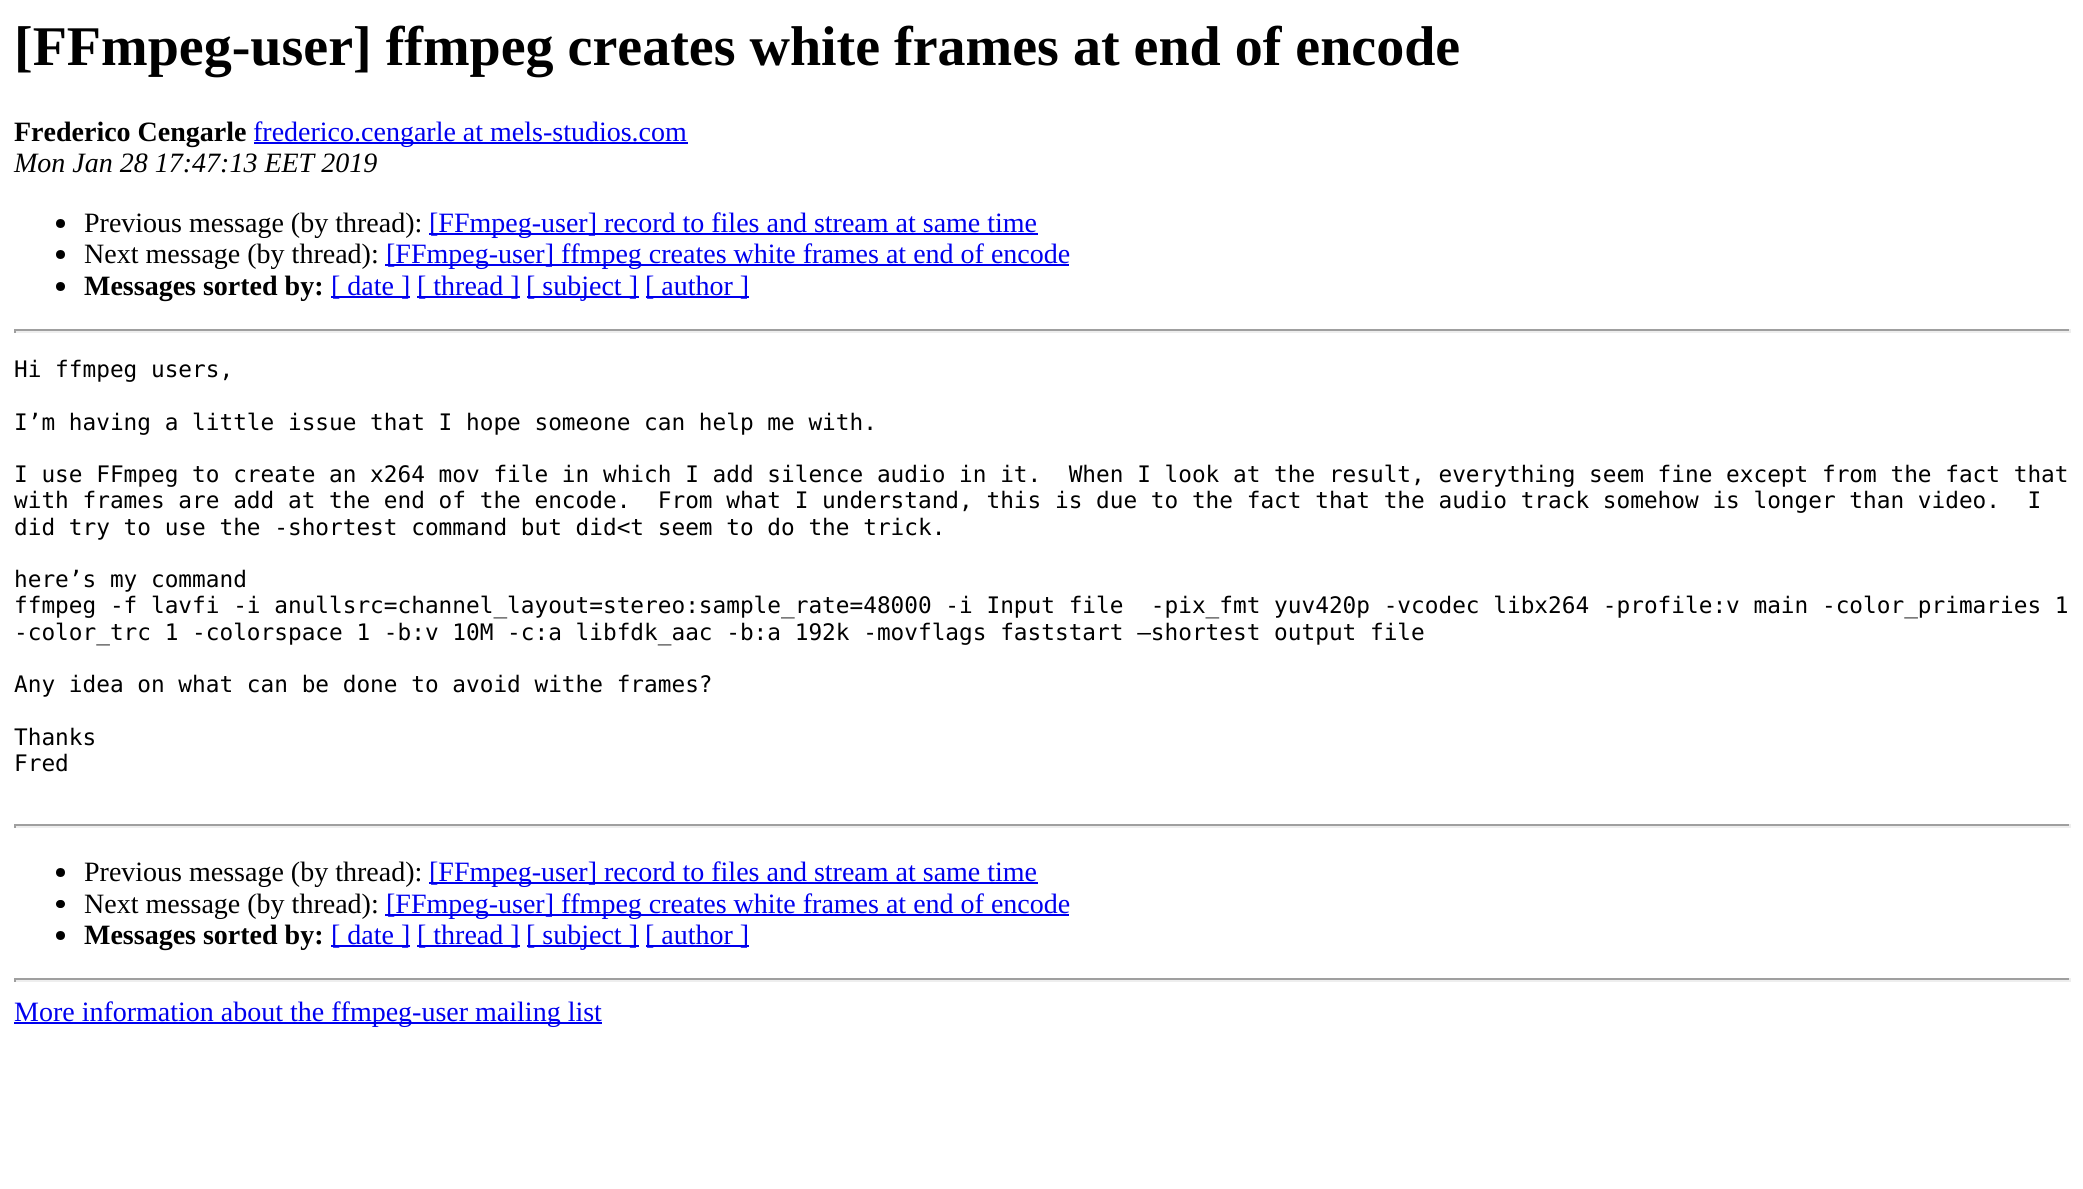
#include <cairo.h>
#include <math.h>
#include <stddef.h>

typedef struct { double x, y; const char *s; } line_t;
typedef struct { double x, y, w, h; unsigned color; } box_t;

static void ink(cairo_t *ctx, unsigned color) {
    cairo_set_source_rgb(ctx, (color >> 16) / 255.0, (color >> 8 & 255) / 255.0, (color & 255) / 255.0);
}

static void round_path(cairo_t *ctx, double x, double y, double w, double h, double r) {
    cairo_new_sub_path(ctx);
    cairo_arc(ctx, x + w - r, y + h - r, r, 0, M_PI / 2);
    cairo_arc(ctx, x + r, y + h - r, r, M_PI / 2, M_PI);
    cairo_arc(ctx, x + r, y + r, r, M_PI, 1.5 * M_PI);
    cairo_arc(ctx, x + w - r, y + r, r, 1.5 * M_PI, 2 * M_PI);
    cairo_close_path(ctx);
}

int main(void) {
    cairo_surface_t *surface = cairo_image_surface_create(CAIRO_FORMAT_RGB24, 2083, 1189);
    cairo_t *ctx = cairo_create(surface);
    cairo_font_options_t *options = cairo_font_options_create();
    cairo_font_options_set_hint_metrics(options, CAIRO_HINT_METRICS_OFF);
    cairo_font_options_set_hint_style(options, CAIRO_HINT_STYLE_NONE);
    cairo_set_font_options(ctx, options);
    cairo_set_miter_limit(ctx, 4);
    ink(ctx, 0xFFFFFF);
    cairo_paint(ctx);
    cairo_select_font_face(ctx, "Liberation Serif", CAIRO_FONT_SLANT_NORMAL, CAIRO_FONT_WEIGHT_BOLD);
    cairo_set_font_size(ctx, 56);
    ink(ctx, 0x000000);
    cairo_move_to(ctx, 14, 65);
    cairo_show_text(ctx, "[FFmpeg-user] ffmpeg creates white frames at end of encode");
    cairo_set_font_size(ctx, 28);
    cairo_move_to(ctx, 14, 141);
    cairo_show_text(ctx, "Frederico Cengarle");
    ink(ctx, 0x0000EE);
    cairo_rectangle(ctx, 254, 142, 434, 2);
    cairo_fill(ctx);
    cairo_select_font_face(ctx, "Liberation Serif", CAIRO_FONT_SLANT_NORMAL, CAIRO_FONT_WEIGHT_NORMAL);
    cairo_move_to(ctx, 253, 141);
    cairo_show_text(ctx, "frederico.cengarle at mels-studios.com");
    cairo_select_font_face(ctx, "Liberation Serif", CAIRO_FONT_SLANT_ITALIC, CAIRO_FONT_WEIGHT_NORMAL);
    ink(ctx, 0x000000);
    cairo_move_to(ctx, 14, 172);
    cairo_show_text(ctx, "Mon Jan 28 17:47:13 EET 2019");
    cairo_new_path(ctx);
    cairo_arc(ctx, 60.5, 223.5, 4.5, 0, 2 * M_PI);
    cairo_fill(ctx);
    cairo_select_font_face(ctx, "Liberation Serif", CAIRO_FONT_SLANT_NORMAL, CAIRO_FONT_WEIGHT_NORMAL);
    cairo_move_to(ctx, 84, 232);
    cairo_show_text(ctx, "Previous message (by thread):");
    ink(ctx, 0x0000EE);
    cairo_rectangle(ctx, 429, 233, 609, 2);
    cairo_fill(ctx);
    cairo_move_to(ctx, 429, 232);
    cairo_show_text(ctx, "[FFmpeg-user] record to files and stream at same time");
    ink(ctx, 0x000000);
    cairo_new_path(ctx);
    cairo_arc(ctx, 60.5, 254.5, 4.5, 0, 2 * M_PI);
    cairo_fill(ctx);
    cairo_move_to(ctx, 84, 263);
    cairo_show_text(ctx, "Next message (by thread):");
    ink(ctx, 0x0000EE);
    cairo_rectangle(ctx, 385, 264, 684, 2);
    cairo_fill(ctx);
    cairo_move_to(ctx, 386, 263);
    cairo_show_text(ctx, "[FFmpeg-user] ffmpeg creates white frames at end of encode");
    ink(ctx, 0x000000);
    cairo_new_path(ctx);
    cairo_arc(ctx, 60.5, 286.5, 4.5, 0, 2 * M_PI);
    cairo_fill(ctx);
    cairo_select_font_face(ctx, "Liberation Serif", CAIRO_FONT_SLANT_NORMAL, CAIRO_FONT_WEIGHT_BOLD);
    cairo_move_to(ctx, 84, 295);
    cairo_show_text(ctx, "Messages sorted by:");
    ink(ctx, 0x0000EE);
    cairo_rectangle(ctx, 331, 296, 79, 2);
    cairo_fill(ctx);
    cairo_select_font_face(ctx, "Liberation Serif", CAIRO_FONT_SLANT_NORMAL, CAIRO_FONT_WEIGHT_NORMAL);
    cairo_move_to(ctx, 331, 295);
    cairo_show_text(ctx, "[ date ]");
    cairo_rectangle(ctx, 417, 296, 103, 2);
    cairo_fill(ctx);
    cairo_move_to(ctx, 417, 295);
    cairo_show_text(ctx, "[ thread ]");
    cairo_rectangle(ctx, 527, 296, 112, 2);
    cairo_fill(ctx);
    cairo_move_to(ctx, 526, 295);
    cairo_show_text(ctx, "[ subject ]");
    cairo_rectangle(ctx, 646, 296, 103, 2);
    cairo_fill(ctx);
    cairo_move_to(ctx, 645, 295);
    cairo_show_text(ctx, "[ author ]");
    {
        static const box_t items[] = {
            {14, 329, 2056, 2, 0x9F9F9F},
            {2069, 329, 2, 4, 0xEEEEEE},
            {14, 331, 2056, 2, 0xEEEEEE},
            {14, 329, 2, 4, 0x9F9F9F},
        };
        for (size_t i = 0; i < sizeof items / sizeof *items; i++) {
            ink(ctx, items[i].color);
            cairo_rectangle(ctx, items[i].x, items[i].y, items[i].w, items[i].h);
            cairo_fill(ctx);
        }
    }
    cairo_select_font_face(ctx, "DejaVu Sans Mono", CAIRO_FONT_SLANT_NORMAL, CAIRO_FONT_WEIGHT_NORMAL);
    cairo_set_font_size(ctx, 22.75);
    ink(ctx, 0x000000);
    {
        static const line_t items[] = {
            {14, 377, "Hi ffmpeg users,"},
            {14, 430, "I’m having a little issue that I hope someone can help me with."},
            {14, 482, "I use FFmpeg to create an x264 mov file in which I add silence audio in it.  When I look at the result, everything seem fine except from the fact that"},
            {14, 508, "with frames are add at the end of the encode.  From what I understand, this is due to the fact that the audio track somehow is longer than video.  I"},
            {14, 535, "did try to use the -shortest command but did<t seem to do the trick."},
            {14, 587, "here’s my command"},
            {14, 613, "ffmpeg -f lavfi -i anullsrc=channel_layout=stereo:sample_rate=48000 -i Input file  -pix_fmt yuv420p -vcodec libx264 -profile:v main -color_primaries 1"},
            {14, 640, "-color_trc 1 -colorspace 1 -b:v 10M -c:a libfdk_aac -b:a 192k -movflags faststart –shortest output file"},
            {14, 692, "Any idea on what can be done to avoid withe frames?"},
            {14, 745, "Thanks"},
            {14, 771, "Fred"},
        };
        for (size_t i = 0; i < sizeof items / sizeof *items; i++) {
            cairo_move_to(ctx, items[i].x, items[i].y);
            cairo_show_text(ctx, items[i].s);
        }
    }
    {
        static const box_t items[] = {
            {14, 824, 2056, 2, 0x9F9F9F},
            {2069, 824, 2, 4, 0xEEEEEE},
            {14, 826, 2056, 2, 0xEEEEEE},
            {14, 824, 2, 4, 0x9F9F9F},
        };
        for (size_t i = 0; i < sizeof items / sizeof *items; i++) {
            ink(ctx, items[i].color);
            cairo_rectangle(ctx, items[i].x, items[i].y, items[i].w, items[i].h);
            cairo_fill(ctx);
        }
    }
    ink(ctx, 0x000000);
    cairo_new_path(ctx);
    cairo_arc(ctx, 60.5, 872.5, 4.5, 0, 2 * M_PI);
    cairo_fill(ctx);
    cairo_select_font_face(ctx, "Liberation Serif", CAIRO_FONT_SLANT_NORMAL, CAIRO_FONT_WEIGHT_NORMAL);
    cairo_set_font_size(ctx, 28);
    cairo_move_to(ctx, 84, 881);
    cairo_show_text(ctx, "Previous message (by thread):");
    ink(ctx, 0x0000EE);
    cairo_rectangle(ctx, 429, 882, 609, 2);
    cairo_fill(ctx);
    cairo_move_to(ctx, 429, 881);
    cairo_show_text(ctx, "[FFmpeg-user] record to files and stream at same time");
    ink(ctx, 0x000000);
    round_path(ctx, 56, 900, 9, 8, 4);
    cairo_fill(ctx);
    cairo_move_to(ctx, 84, 913);
    cairo_show_text(ctx, "Next message (by thread):");
    ink(ctx, 0x0000EE);
    cairo_rectangle(ctx, 385, 914, 684, 2);
    cairo_fill(ctx);
    cairo_move_to(ctx, 386, 913);
    cairo_show_text(ctx, "[FFmpeg-user] ffmpeg creates white frames at end of encode");
    ink(ctx, 0x000000);
    cairo_new_path(ctx);
    cairo_arc(ctx, 60.5, 935.5, 4.5, 0, 2 * M_PI);
    cairo_fill(ctx);
    cairo_select_font_face(ctx, "Liberation Serif", CAIRO_FONT_SLANT_NORMAL, CAIRO_FONT_WEIGHT_BOLD);
    cairo_move_to(ctx, 84, 944);
    cairo_show_text(ctx, "Messages sorted by:");
    ink(ctx, 0x0000EE);
    cairo_rectangle(ctx, 331, 945, 79, 2);
    cairo_fill(ctx);
    cairo_select_font_face(ctx, "Liberation Serif", CAIRO_FONT_SLANT_NORMAL, CAIRO_FONT_WEIGHT_NORMAL);
    cairo_move_to(ctx, 331, 944);
    cairo_show_text(ctx, "[ date ]");
    cairo_rectangle(ctx, 417, 945, 103, 2);
    cairo_fill(ctx);
    cairo_move_to(ctx, 417, 944);
    cairo_show_text(ctx, "[ thread ]");
    cairo_rectangle(ctx, 527, 945, 112, 2);
    cairo_fill(ctx);
    cairo_move_to(ctx, 526, 944);
    cairo_show_text(ctx, "[ subject ]");
    cairo_rectangle(ctx, 646, 945, 103, 2);
    cairo_fill(ctx);
    cairo_move_to(ctx, 645, 944);
    cairo_show_text(ctx, "[ author ]");
    {
        static const box_t items[] = {
            {14, 978, 2056, 2, 0x9F9F9F},
            {2069, 978, 2, 4, 0xEEEEEE},
            {14, 980, 2056, 2, 0xEEEEEE},
            {14, 978, 2, 4, 0x9F9F9F},
            {14, 1022, 588, 2, 0x0000EE},
        };
        for (size_t i = 0; i < sizeof items / sizeof *items; i++) {
            ink(ctx, items[i].color);
            cairo_rectangle(ctx, items[i].x, items[i].y, items[i].w, items[i].h);
            cairo_fill(ctx);
        }
    }
    cairo_move_to(ctx, 14, 1021);
    cairo_show_text(ctx, "More information about the ffmpeg-user mailing list");
    cairo_surface_write_to_png(surface, "image.png");
    cairo_font_options_destroy(options);
    cairo_destroy(ctx);
    cairo_surface_destroy(surface);
    return 0;
}
